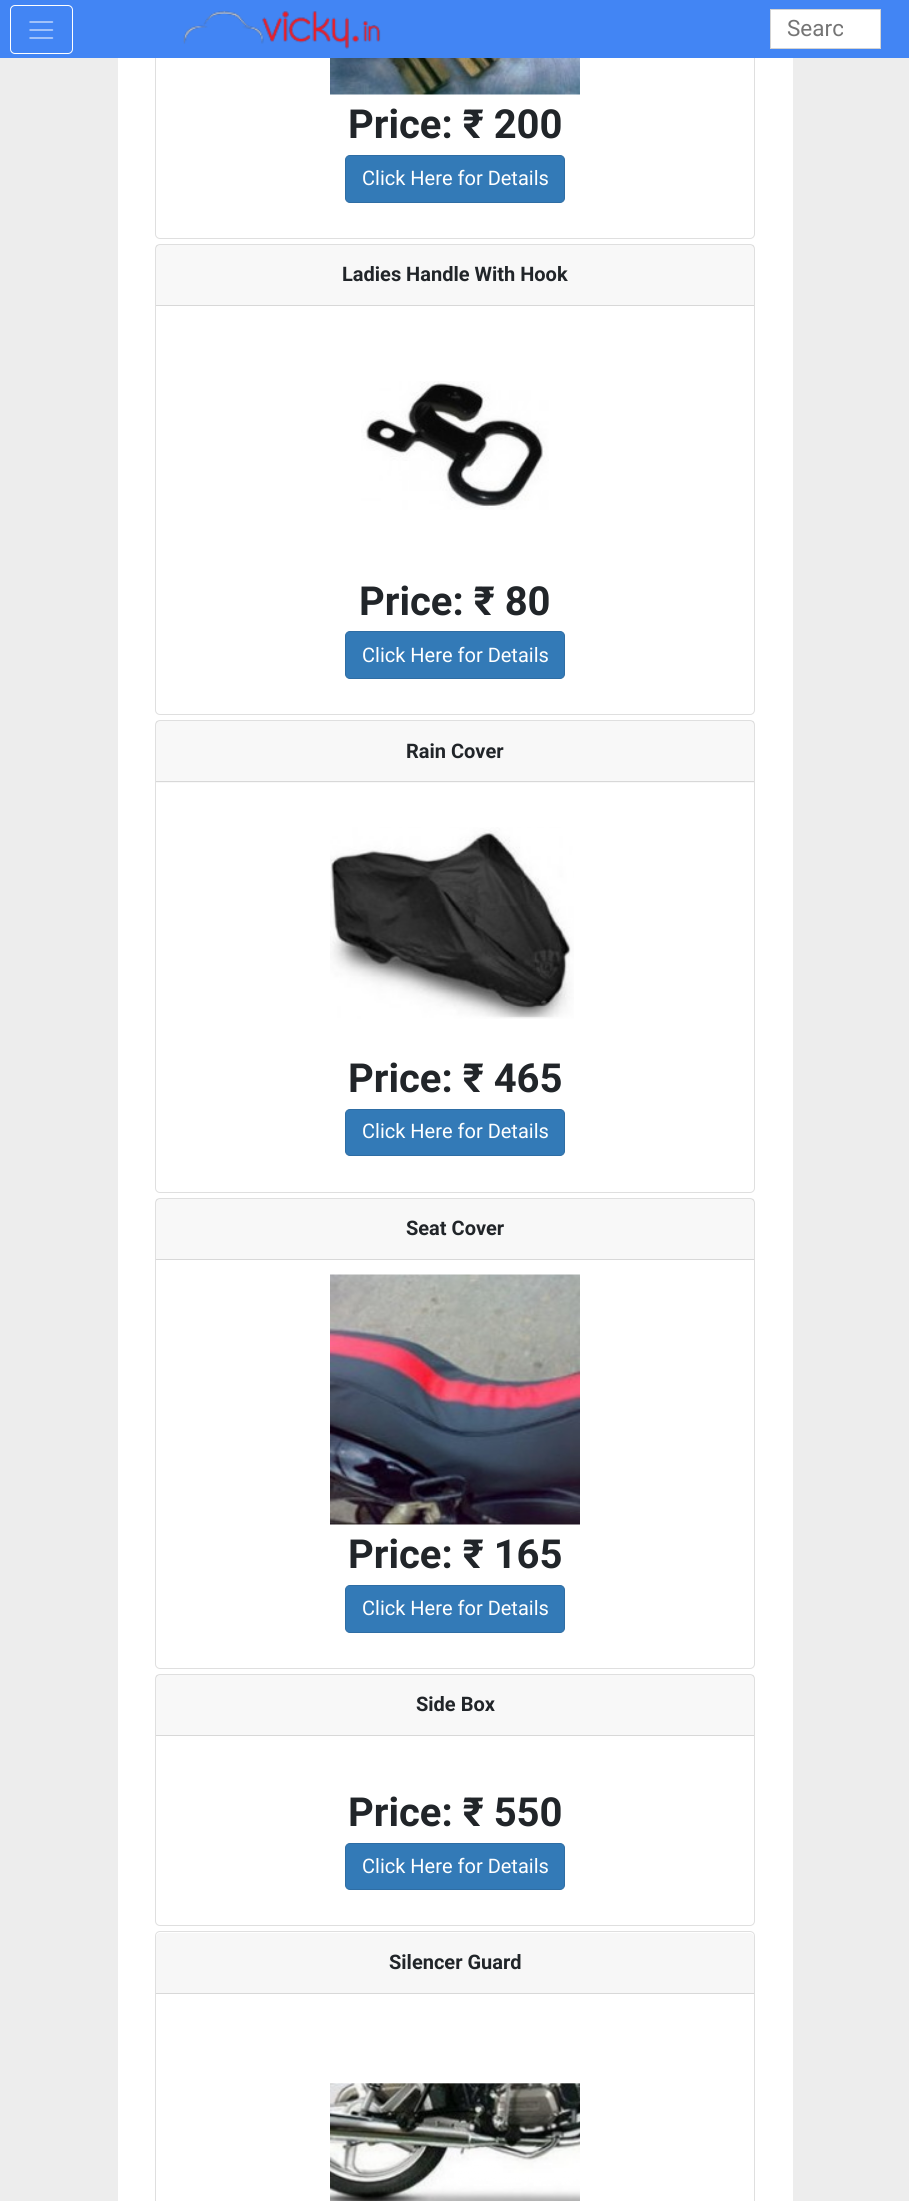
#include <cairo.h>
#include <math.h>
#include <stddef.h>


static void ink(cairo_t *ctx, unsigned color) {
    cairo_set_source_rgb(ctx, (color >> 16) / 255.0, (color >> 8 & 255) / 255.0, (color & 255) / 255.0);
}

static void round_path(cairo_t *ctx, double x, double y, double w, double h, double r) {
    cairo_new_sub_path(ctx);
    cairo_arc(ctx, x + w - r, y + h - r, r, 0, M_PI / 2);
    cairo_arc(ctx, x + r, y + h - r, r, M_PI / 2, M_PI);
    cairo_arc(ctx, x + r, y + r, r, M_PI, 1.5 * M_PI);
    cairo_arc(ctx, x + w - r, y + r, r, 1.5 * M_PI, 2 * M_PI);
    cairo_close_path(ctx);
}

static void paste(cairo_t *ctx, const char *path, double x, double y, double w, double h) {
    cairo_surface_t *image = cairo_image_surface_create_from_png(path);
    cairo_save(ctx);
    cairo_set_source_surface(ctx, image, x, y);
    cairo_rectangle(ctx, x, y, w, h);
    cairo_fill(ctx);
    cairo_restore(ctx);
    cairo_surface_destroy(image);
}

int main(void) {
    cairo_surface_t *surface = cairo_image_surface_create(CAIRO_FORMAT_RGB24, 909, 2201);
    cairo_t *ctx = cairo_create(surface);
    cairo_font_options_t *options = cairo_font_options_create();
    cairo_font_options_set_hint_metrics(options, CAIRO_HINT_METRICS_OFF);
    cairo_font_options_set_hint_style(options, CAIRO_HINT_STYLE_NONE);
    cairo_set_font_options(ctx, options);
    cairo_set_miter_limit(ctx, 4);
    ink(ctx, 0xEDEDED);
    cairo_paint(ctx);
    ink(ctx, 0xFFFFFF);
    cairo_rectangle(ctx, 118, 58, 675, 2143);
    cairo_fill(ctx);
    round_path(ctx, 155.5, -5.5, 599, 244, 4.5);
    ink(ctx, 0xDFDFDF);
    cairo_set_line_width(ctx, 1);
    cairo_stroke(ctx);
    ink(ctx, 0x4285F4);
    cairo_rectangle(ctx, 0, 0, 909, 58);
    cairo_fill(ctx);
    round_path(ctx, 10.5, 5.5, 62, 48, 4.5);
    ink(ctx, 0xFFFFFF);
    cairo_stroke(ctx);
    paste(ctx, "media/1.png", 29, 21, 25, 18);
    paste(ctx, "media/2.png", 183, 11, 198, 38);
    cairo_rectangle(ctx, 770.5, 9.5, 110, 39);
    cairo_fill_preserve(ctx);
    ink(ctx, 0xD3D3D3);
    cairo_stroke(ctx);
    cairo_save(ctx);
    cairo_rectangle(ctx, 781, 15, 62, 26);
    cairo_clip(ctx);
    cairo_select_font_face(ctx, "Roboto", CAIRO_FONT_SLANT_NORMAL, CAIRO_FONT_WEIGHT_NORMAL);
    cairo_set_font_size(ctx, 22.5);
    ink(ctx, 0x757575);
    cairo_move_to(ctx, 787, 36);
    cairo_show_text(ctx, "Searc");
    cairo_restore(ctx);
    paste(ctx, "media/3.png", 330, 58, 250, 37);
    cairo_select_font_face(ctx, "Roboto", CAIRO_FONT_SLANT_NORMAL, CAIRO_FONT_WEIGHT_BOLD);
    cairo_set_font_size(ctx, 40);
    ink(ctx, 0x212529);
    cairo_move_to(ctx, 348, 138);
    cairo_show_text(ctx, "Price: ₹ 200");
    ink(ctx, 0x337AB7);
    round_path(ctx, 345.5, 155.5, 219, 47, 4.5);
    cairo_fill_preserve(ctx);
    ink(ctx, 0x2E6DA4);
    cairo_stroke(ctx);
    cairo_select_font_face(ctx, "Roboto", CAIRO_FONT_SLANT_NORMAL, CAIRO_FONT_WEIGHT_NORMAL);
    cairo_set_font_size(ctx, 20);
    ink(ctx, 0xFFFFFF);
    cairo_move_to(ctx, 362, 185);
    cairo_show_text(ctx, "Click Here for Details");
    round_path(ctx, 155.5, 244.5, 599, 470, 4.5);
    ink(ctx, 0xDFDFDF);
    cairo_stroke(ctx);
    cairo_set_source_rgba(ctx, 0, 0, 0, 0.03);
    cairo_rectangle(ctx, 156, 245, 598, 60);
    cairo_fill(ctx);
    ink(ctx, 0xD8D8D8);
    cairo_rectangle(ctx, 156, 305, 598, 1);
    cairo_fill(ctx);
    cairo_select_font_face(ctx, "Roboto", CAIRO_FONT_SLANT_NORMAL, CAIRO_FONT_WEIGHT_BOLD);
    ink(ctx, 0x212529);
    cairo_move_to(ctx, 342, 281);
    cairo_show_text(ctx, "Ladies Handle With Hook");
    paste(ctx, "media/4.png", 361, 381, 188, 129);
    cairo_set_font_size(ctx, 40);
    cairo_move_to(ctx, 359, 615);
    cairo_show_text(ctx, "Price: ₹ 80");
    ink(ctx, 0x337AB7);
    round_path(ctx, 345.5, 631.5, 219, 47, 4.5);
    cairo_fill_preserve(ctx);
    ink(ctx, 0x2E6DA4);
    cairo_stroke(ctx);
    cairo_select_font_face(ctx, "Roboto", CAIRO_FONT_SLANT_NORMAL, CAIRO_FONT_WEIGHT_NORMAL);
    cairo_set_font_size(ctx, 20);
    ink(ctx, 0xFFFFFF);
    cairo_move_to(ctx, 362, 662);
    cairo_show_text(ctx, "Click Here for Details");
    round_path(ctx, 155.5, 720.5, 599, 472, 4.5);
    ink(ctx, 0xDFDFDF);
    cairo_stroke(ctx);
    cairo_set_source_rgba(ctx, 0, 0, 0, 0.03);
    cairo_rectangle(ctx, 156, 721, 598, 62);
    cairo_fill(ctx);
    ink(ctx, 0xD8D8D8);
    cairo_rectangle(ctx, 156, 781, 598, 1);
    cairo_fill(ctx);
    cairo_select_font_face(ctx, "Roboto", CAIRO_FONT_SLANT_NORMAL, CAIRO_FONT_WEIGHT_BOLD);
    ink(ctx, 0x212529);
    cairo_move_to(ctx, 406, 758);
    cairo_show_text(ctx, "Rain Cover");
    paste(ctx, "media/5.png", 330, 827, 244, 192);
    cairo_set_font_size(ctx, 40);
    cairo_move_to(ctx, 348, 1092);
    cairo_show_text(ctx, "Price: ₹ 465");
    ink(ctx, 0x337AB7);
    round_path(ctx, 345.5, 1109.5, 219, 46, 4.5);
    cairo_fill_preserve(ctx);
    ink(ctx, 0x2E6DA4);
    cairo_stroke(ctx);
    cairo_select_font_face(ctx, "Roboto", CAIRO_FONT_SLANT_NORMAL, CAIRO_FONT_WEIGHT_NORMAL);
    cairo_set_font_size(ctx, 20);
    ink(ctx, 0xFFFFFF);
    cairo_move_to(ctx, 362, 1138);
    cairo_show_text(ctx, "Click Here for Details");
    round_path(ctx, 155.5, 1198.5, 599, 470, 4.5);
    ink(ctx, 0xDFDFDF);
    cairo_stroke(ctx);
    cairo_set_source_rgba(ctx, 0, 0, 0, 0.03);
    cairo_rectangle(ctx, 156, 1199, 598, 60);
    cairo_fill(ctx);
    ink(ctx, 0xD8D8D8);
    cairo_rectangle(ctx, 156, 1259, 598, 1);
    cairo_fill(ctx);
    cairo_select_font_face(ctx, "Roboto", CAIRO_FONT_SLANT_NORMAL, CAIRO_FONT_WEIGHT_BOLD);
    ink(ctx, 0x212529);
    cairo_move_to(ctx, 406, 1235);
    cairo_show_text(ctx, "Seat Cover");
    paste(ctx, "media/6.png", 330, 1274, 250, 251);
    cairo_set_font_size(ctx, 40);
    cairo_move_to(ctx, 348, 1568);
    cairo_show_text(ctx, "Price: ₹ 165");
    ink(ctx, 0x337AB7);
    round_path(ctx, 345.5, 1585.5, 219, 47, 4.5);
    cairo_fill_preserve(ctx);
    ink(ctx, 0x2E6DA4);
    cairo_stroke(ctx);
    cairo_select_font_face(ctx, "Roboto", CAIRO_FONT_SLANT_NORMAL, CAIRO_FONT_WEIGHT_NORMAL);
    cairo_set_font_size(ctx, 20);
    ink(ctx, 0xFFFFFF);
    cairo_move_to(ctx, 362, 1615);
    cairo_show_text(ctx, "Click Here for Details");
    round_path(ctx, 155.5, 1674.5, 599, 251, 4.5);
    ink(ctx, 0xDFDFDF);
    cairo_stroke(ctx);
    cairo_set_source_rgba(ctx, 0, 0, 0, 0.03);
    cairo_rectangle(ctx, 156, 1675, 598, 60);
    cairo_fill(ctx);
    ink(ctx, 0xD8D8D8);
    cairo_rectangle(ctx, 156, 1735, 598, 1);
    cairo_fill(ctx);
    cairo_select_font_face(ctx, "Roboto", CAIRO_FONT_SLANT_NORMAL, CAIRO_FONT_WEIGHT_BOLD);
    ink(ctx, 0x212529);
    cairo_move_to(ctx, 416, 1711);
    cairo_show_text(ctx, "Side Box");
    cairo_set_font_size(ctx, 40);
    cairo_move_to(ctx, 348, 1826);
    cairo_show_text(ctx, "Price: ₹ 550");
    ink(ctx, 0x337AB7);
    round_path(ctx, 345.5, 1843.5, 219, 46, 4.5);
    cairo_fill_preserve(ctx);
    ink(ctx, 0x2E6DA4);
    cairo_stroke(ctx);
    cairo_select_font_face(ctx, "Roboto", CAIRO_FONT_SLANT_NORMAL, CAIRO_FONT_WEIGHT_NORMAL);
    cairo_set_font_size(ctx, 20);
    ink(ctx, 0xFFFFFF);
    cairo_move_to(ctx, 362, 1873);
    cairo_show_text(ctx, "Click Here for Details");
    round_path(ctx, 155.5, 1931.5, 599, 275, 4.5);
    ink(ctx, 0xDFDFDF);
    cairo_stroke(ctx);
    ink(ctx, 0xF7F7F7);
    cairo_new_path(ctx);
    cairo_move_to(ctx, 160, 1933);
    cairo_line_to(ctx, 750, 1933);
    cairo_curve_to(ctx, 752, 1933, 754, 1935, 754, 1937);
    cairo_line_to(ctx, 754, 1994);
    cairo_line_to(ctx, 156, 1994);
    cairo_line_to(ctx, 156, 1937);
    cairo_curve_to(ctx, 156, 1935, 158, 1933, 160, 1933);
    cairo_close_path(ctx);
    cairo_fill(ctx);
    ink(ctx, 0xD8D8D8);
    cairo_rectangle(ctx, 156, 1993, 598, 1);
    cairo_fill(ctx);
    cairo_select_font_face(ctx, "Roboto", CAIRO_FONT_SLANT_NORMAL, CAIRO_FONT_WEIGHT_BOLD);
    ink(ctx, 0x212529);
    cairo_move_to(ctx, 389, 1969);
    cairo_show_text(ctx, "Silencer Guard");
    paste(ctx, "media/7.png", 330, 2083, 250, 118);
    cairo_surface_write_to_png(surface, "image.png");
    cairo_font_options_destroy(options);
    cairo_destroy(ctx);
    cairo_surface_destroy(surface);
    return 0;
}
